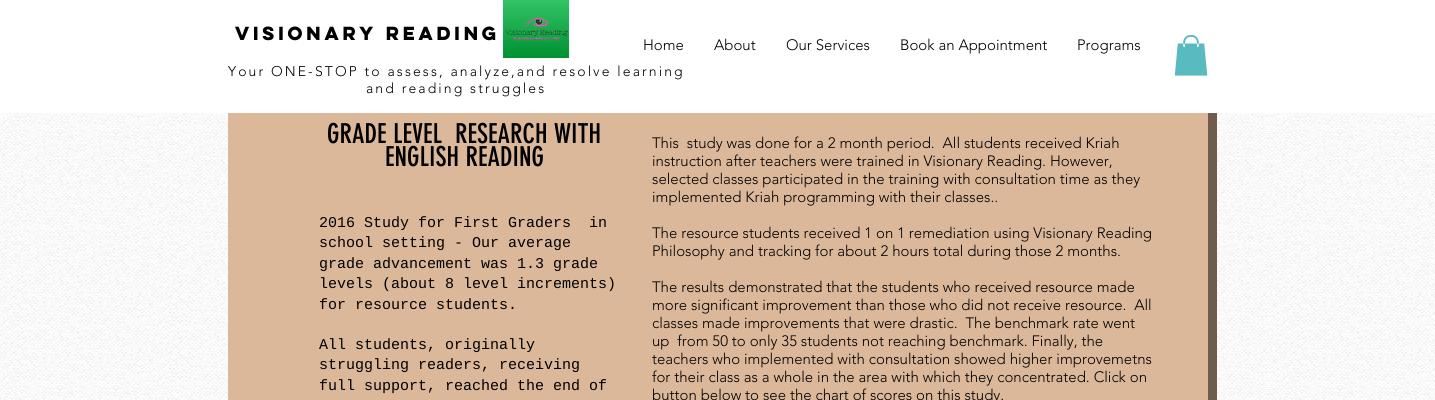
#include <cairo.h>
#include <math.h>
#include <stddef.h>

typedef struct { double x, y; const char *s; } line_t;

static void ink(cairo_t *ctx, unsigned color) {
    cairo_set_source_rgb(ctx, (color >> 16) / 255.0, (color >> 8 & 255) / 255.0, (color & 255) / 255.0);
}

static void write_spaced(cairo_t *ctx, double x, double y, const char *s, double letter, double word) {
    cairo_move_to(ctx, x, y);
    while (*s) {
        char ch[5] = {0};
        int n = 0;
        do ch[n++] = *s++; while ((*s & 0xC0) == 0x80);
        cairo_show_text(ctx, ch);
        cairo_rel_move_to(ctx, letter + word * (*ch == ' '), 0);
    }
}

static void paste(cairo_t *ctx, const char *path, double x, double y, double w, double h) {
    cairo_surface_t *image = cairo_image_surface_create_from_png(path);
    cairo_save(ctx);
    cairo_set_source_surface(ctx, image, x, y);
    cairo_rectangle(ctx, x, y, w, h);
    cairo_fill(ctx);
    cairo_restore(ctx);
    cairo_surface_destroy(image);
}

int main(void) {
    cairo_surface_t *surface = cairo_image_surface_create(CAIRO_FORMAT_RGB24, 1435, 400);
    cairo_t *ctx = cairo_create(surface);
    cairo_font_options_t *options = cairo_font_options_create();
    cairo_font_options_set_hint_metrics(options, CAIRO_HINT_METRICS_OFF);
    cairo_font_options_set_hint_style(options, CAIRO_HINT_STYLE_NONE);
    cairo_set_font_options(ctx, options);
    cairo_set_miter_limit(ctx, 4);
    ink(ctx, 0xFFFFFF);
    cairo_paint(ctx);
    cairo_select_font_face(ctx, "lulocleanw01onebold", CAIRO_FONT_SLANT_NORMAL, CAIRO_FONT_WEIGHT_BOLD);
    cairo_set_font_size(ctx, 17);
    ink(ctx, 0x000000);
    cairo_move_to(ctx, 235, 40);
    cairo_show_text(ctx, "VISionary Reading");
    paste(ctx, "media/1.png", 503, 0, 66, 58);
    cairo_select_font_face(ctx, "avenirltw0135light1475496 Light", CAIRO_FONT_SLANT_NORMAL, CAIRO_FONT_WEIGHT_NORMAL);
    cairo_set_font_size(ctx, 15);
    {
        static const line_t items[] = {
            {643, 50, "Home"},
            {714, 50, "About"},
            {786, 50, "Our Services"},
            {900, 50, "Book an Appointment"},
            {1077, 50, "Programs"},
        };
        for (size_t i = 0; i < sizeof items / sizeof *items; i++) {
            cairo_move_to(ctx, items[i].x, items[i].y);
            cairo_show_text(ctx, items[i].s);
        }
    }
    paste(ctx, "media/3.png", 0, 113, 1435, 287);
    ink(ctx, 0x6E5C4D);
    cairo_new_path(ctx);
    cairo_move_to(ctx, 237, 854);
    cairo_curve_to(ctx, 238, 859, 242, 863, 247, 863);
    cairo_line_to(ctx, 1207, 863);
    cairo_curve_to(ctx, 1213, 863, 1217, 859, 1217, 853);
    cairo_line_to(ctx, 1217, 64);
    cairo_curve_to(ctx, 1217, 59, 1213, 55, 1208, 54);
    cairo_line_to(ctx, 1208, 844);
    cairo_curve_to(ctx, 1208, 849, 1203, 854, 1198, 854);
    cairo_close_path(ctx);
    cairo_fill(ctx);
    cairo_new_path(ctx);
    cairo_move_to(ctx, 235, 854);
    cairo_curve_to(ctx, 237, 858, 240, 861, 245, 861);
    cairo_line_to(ctx, 1205, 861);
    cairo_curve_to(ctx, 1211, 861, 1215, 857, 1215, 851);
    cairo_line_to(ctx, 1215, 62);
    cairo_curve_to(ctx, 1215, 57, 1212, 54, 1208, 52);
    cairo_line_to(ctx, 1208, 55);
    cairo_line_to(ctx, 1208, 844);
    cairo_curve_to(ctx, 1208, 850, 1204, 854, 1198, 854);
    cairo_line_to(ctx, 238, 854);
    cairo_close_path(ctx);
    cairo_fill(ctx);
    cairo_new_path(ctx);
    cairo_move_to(ctx, 234, 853);
    cairo_curve_to(ctx, 235, 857, 239, 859, 243, 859);
    cairo_line_to(ctx, 1203, 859);
    cairo_curve_to(ctx, 1209, 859, 1213, 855, 1213, 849);
    cairo_line_to(ctx, 1213, 60);
    cairo_curve_to(ctx, 1213, 56, 1211, 52, 1207, 51);
    cairo_line_to(ctx, 1208, 55);
    cairo_line_to(ctx, 1208, 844);
    cairo_curve_to(ctx, 1208, 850, 1204, 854, 1198, 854);
    cairo_line_to(ctx, 238, 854);
    cairo_close_path(ctx);
    cairo_fill(ctx);
    cairo_new_path(ctx);
    cairo_move_to(ctx, 233, 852);
    cairo_curve_to(ctx, 234, 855, 237, 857, 241, 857);
    cairo_line_to(ctx, 1201, 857);
    cairo_curve_to(ctx, 1207, 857, 1211, 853, 1211, 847);
    cairo_line_to(ctx, 1211, 58);
    cairo_curve_to(ctx, 1211, 54, 1209, 51, 1206, 50);
    cairo_curve_to(ctx, 1207, 51, 1208, 53, 1208, 55);
    cairo_line_to(ctx, 1208, 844);
    cairo_curve_to(ctx, 1208, 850, 1204, 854, 1198, 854);
    cairo_line_to(ctx, 238, 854);
    cairo_curve_to(ctx, 236, 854, 234, 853, 233, 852);
    cairo_close_path(ctx);
    cairo_fill(ctx);
    cairo_new_path(ctx);
    cairo_move_to(ctx, 231, 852);
    cairo_curve_to(ctx, 233, 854, 236, 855, 239, 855);
    cairo_line_to(ctx, 1199, 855);
    cairo_curve_to(ctx, 1205, 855, 1209, 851, 1209, 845);
    cairo_line_to(ctx, 1209, 56);
    cairo_curve_to(ctx, 1209, 53, 1208, 50, 1206, 48);
    cairo_curve_to(ctx, 1207, 50, 1208, 52, 1208, 55);
    cairo_line_to(ctx, 1208, 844);
    cairo_curve_to(ctx, 1208, 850, 1204, 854, 1198, 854);
    cairo_line_to(ctx, 238, 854);
    cairo_curve_to(ctx, 235, 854, 233, 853, 231, 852);
    cairo_close_path(ctx);
    cairo_fill(ctx);
    ink(ctx, 0xFFFFFF);
    cairo_rectangle(ctx, 1206, 48, 11, 65);
    cairo_fill(ctx);
    paste(ctx, "media/2.png", 1174, 35, 34, 41);
    cairo_set_font_size(ctx, 14);
    ink(ctx, 0x000000);
    write_spaced(ctx, 228, 76, "Your ONE-STOP to assess, analyze,and resolve learning", 2.1, 0);
    write_spaced(ctx, 366, 93, "and reading struggles", 2.1, 0);
    ink(ctx, 0xDBB89A);
    cairo_rectangle(ctx, 228, 113, 980, 287);
    cairo_fill(ctx);
    cairo_select_font_face(ctx, "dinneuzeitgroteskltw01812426", CAIRO_FONT_SLANT_NORMAL, CAIRO_FONT_WEIGHT_NORMAL);
    cairo_set_font_size(ctx, 27);
    ink(ctx, 0x000000);
    cairo_move_to(ctx, 327, 143);
    cairo_show_text(ctx, "GRADE LEVEL  RESEARCH WITH");
    cairo_move_to(ctx, 385, 166);
    cairo_show_text(ctx, "ENGLISH READING");
    cairo_select_font_face(ctx, "Liberation Mono", CAIRO_FONT_SLANT_NORMAL, CAIRO_FONT_WEIGHT_NORMAL);
    cairo_set_font_size(ctx, 15);
    {
        static const line_t items[] = {
            {319, 227, "2016 Study for First Graders  in"},
            {319, 247, "school setting - Our average"},
            {319, 268, "grade advancement was 1.3 grade"},
            {319, 288, "levels (about 8 level increments)"},
            {319, 309, "for resource students."},
            {319, 349, "All students, originally"},
            {319, 369, "struggling readers, receiving"},
            {319, 390, "full support, reached the end of"},
        };
        for (size_t i = 0; i < sizeof items / sizeof *items; i++) {
            cairo_move_to(ctx, items[i].x, items[i].y);
            cairo_show_text(ctx, items[i].s);
        }
    }
    cairo_select_font_face(ctx, "avenirltw0135light1475496 Light", CAIRO_FONT_SLANT_NORMAL, CAIRO_FONT_WEIGHT_NORMAL);
    {
        static const line_t items[] = {
            {652, 148, "This  study was done for a 2 month period.  All students received Kriah"},
            {652, 166, "instruction after teachers were trained in Visionary Reading. However,"},
            {652, 184, "selected classes participated in the training with consultation time as they"},
            {652, 202, "implemented Kriah programming with their classes.."},
            {652, 238, "The resource students received 1 on 1 remediation using Visionary Reading"},
            {652, 256, "Philosophy and tracking for about 2 hours total during those 2 months."},
            {652, 292, "The results demonstrated that the students who received resource made"},
            {652, 310, "more significant improvement than those who did not receive resource.  All"},
            {652, 328, "classes made improvements that were drastic.  The benchmark rate went"},
            {652, 346, "up  from 50 to only 35 students not reaching benchmark. Finally, the"},
            {652, 364, "teachers who implemented with consultation showed higher improvemetns"},
            {652, 382, "for their class as a whole in the area with which they concentrated. Click on"},
            {652, 400, "button below to see the chart of scores on this study."},
        };
        for (size_t i = 0; i < sizeof items / sizeof *items; i++) {
            cairo_move_to(ctx, items[i].x, items[i].y);
            cairo_show_text(ctx, items[i].s);
        }
    }
    cairo_surface_write_to_png(surface, "image.png");
    cairo_font_options_destroy(options);
    cairo_destroy(ctx);
    cairo_surface_destroy(surface);
    return 0;
}
